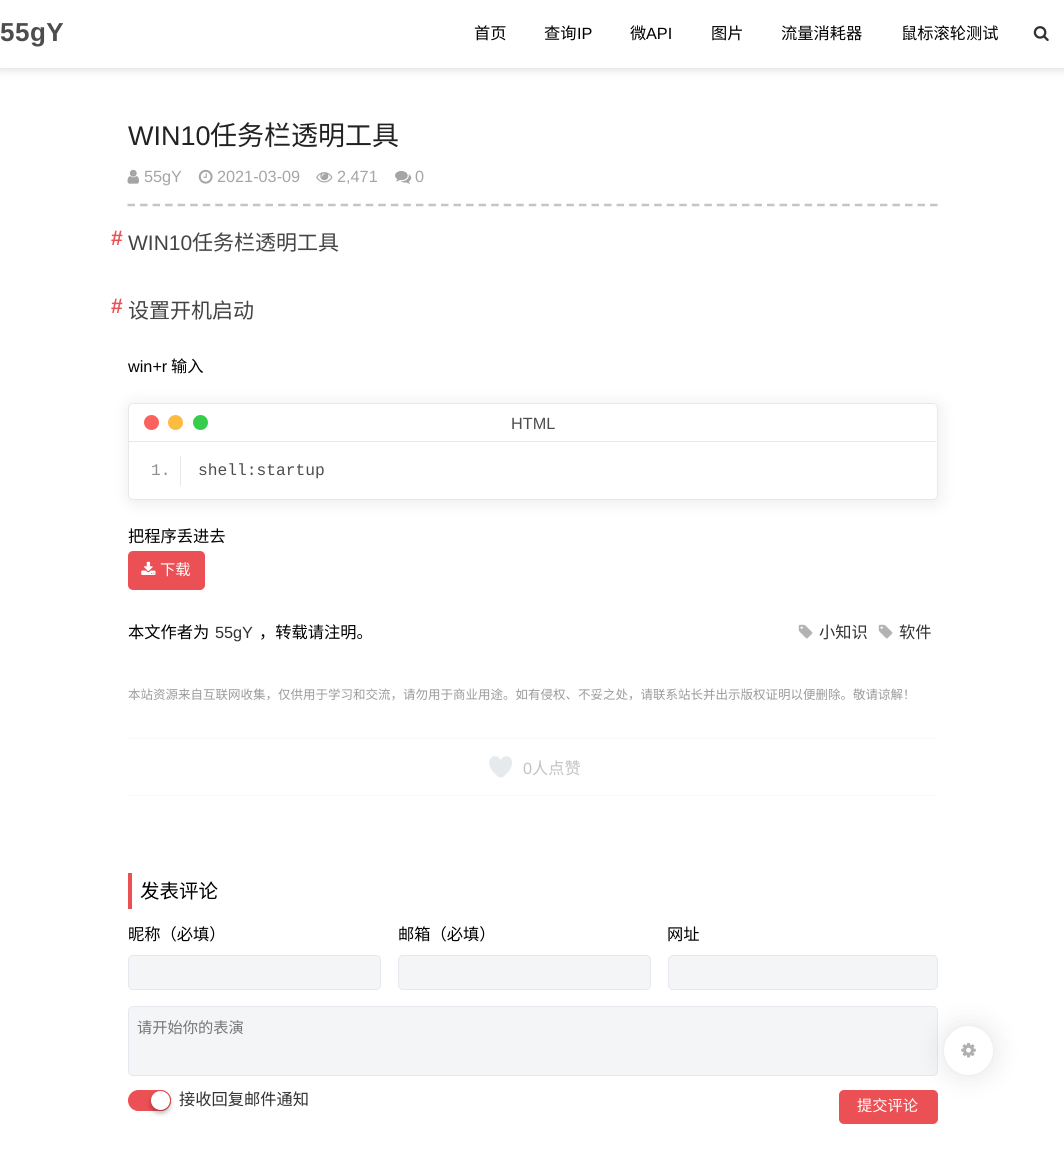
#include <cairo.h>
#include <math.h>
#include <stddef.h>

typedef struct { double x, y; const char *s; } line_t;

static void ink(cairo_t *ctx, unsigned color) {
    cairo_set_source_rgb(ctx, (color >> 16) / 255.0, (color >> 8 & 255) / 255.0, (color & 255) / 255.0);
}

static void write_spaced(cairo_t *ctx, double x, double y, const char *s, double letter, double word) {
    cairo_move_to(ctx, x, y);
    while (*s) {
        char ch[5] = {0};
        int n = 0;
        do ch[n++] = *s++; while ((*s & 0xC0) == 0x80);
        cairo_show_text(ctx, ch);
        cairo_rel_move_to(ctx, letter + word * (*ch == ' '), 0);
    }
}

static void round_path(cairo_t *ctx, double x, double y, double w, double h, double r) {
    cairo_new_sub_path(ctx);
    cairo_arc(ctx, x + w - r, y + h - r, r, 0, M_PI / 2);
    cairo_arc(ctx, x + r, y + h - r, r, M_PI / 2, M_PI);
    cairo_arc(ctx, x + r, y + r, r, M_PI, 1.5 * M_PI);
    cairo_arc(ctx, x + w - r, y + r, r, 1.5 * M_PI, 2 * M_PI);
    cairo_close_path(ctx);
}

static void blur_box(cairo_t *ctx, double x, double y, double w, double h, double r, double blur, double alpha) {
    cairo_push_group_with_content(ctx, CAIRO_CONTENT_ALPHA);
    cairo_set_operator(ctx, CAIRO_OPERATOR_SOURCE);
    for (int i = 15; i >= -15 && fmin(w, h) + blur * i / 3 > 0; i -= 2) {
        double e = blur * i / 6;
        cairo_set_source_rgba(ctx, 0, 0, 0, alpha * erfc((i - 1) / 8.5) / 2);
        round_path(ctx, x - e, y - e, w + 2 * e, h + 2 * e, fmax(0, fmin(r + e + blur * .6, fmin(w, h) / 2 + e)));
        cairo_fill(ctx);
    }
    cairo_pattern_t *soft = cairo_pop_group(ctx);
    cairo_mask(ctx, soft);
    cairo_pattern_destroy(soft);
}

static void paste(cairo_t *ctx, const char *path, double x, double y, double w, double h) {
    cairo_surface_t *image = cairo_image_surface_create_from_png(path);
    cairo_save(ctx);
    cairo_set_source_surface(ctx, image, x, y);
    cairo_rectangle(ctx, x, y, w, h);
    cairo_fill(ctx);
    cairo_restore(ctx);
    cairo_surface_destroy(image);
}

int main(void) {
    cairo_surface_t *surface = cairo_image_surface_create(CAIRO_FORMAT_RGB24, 1064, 1150);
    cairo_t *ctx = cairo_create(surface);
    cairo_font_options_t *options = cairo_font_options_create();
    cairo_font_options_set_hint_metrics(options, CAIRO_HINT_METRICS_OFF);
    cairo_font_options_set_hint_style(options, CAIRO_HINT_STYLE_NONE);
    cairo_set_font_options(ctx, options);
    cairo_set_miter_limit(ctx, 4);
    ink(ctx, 0xFFFFFF);
    cairo_paint(ctx);
    ink(ctx, 0xD0D0D0);
    blur_box(ctx, 0, 0, 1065, 68, 0, 5, 1);
    ink(ctx, 0xFFFFFF);
    cairo_rectangle(ctx, 0, 0, 1064, 68);
    cairo_fill(ctx);
    cairo_select_font_face(ctx, "Liberation Sans", CAIRO_FONT_SLANT_NORMAL, CAIRO_FONT_WEIGHT_BOLD);
    cairo_set_font_size(ctx, 26);
    ink(ctx, 0x4D4D4C);
    write_spaced(ctx, 0, 41, "55gY", 0.5, 0);
    cairo_select_font_face(ctx, "Noto Sans CJK SC", CAIRO_FONT_SLANT_NORMAL, CAIRO_FONT_WEIGHT_NORMAL);
    cairo_set_font_size(ctx, 16.25);
    ink(ctx, 0x000000);
    cairo_move_to(ctx, 474, 39);
    cairo_show_text(ctx, "首页");
    cairo_move_to(ctx, 544, 39);
    cairo_show_text(ctx, "查询");
    cairo_select_font_face(ctx, "Liberation Sans", CAIRO_FONT_SLANT_NORMAL, CAIRO_FONT_WEIGHT_NORMAL);
    cairo_move_to(ctx, 577, 39);
    cairo_show_text(ctx, "IP");
    cairo_select_font_face(ctx, "Noto Sans CJK SC", CAIRO_FONT_SLANT_NORMAL, CAIRO_FONT_WEIGHT_NORMAL);
    cairo_move_to(ctx, 630, 39);
    cairo_show_text(ctx, "微");
    cairo_select_font_face(ctx, "Liberation Sans", CAIRO_FONT_SLANT_NORMAL, CAIRO_FONT_WEIGHT_NORMAL);
    cairo_move_to(ctx, 646, 39);
    cairo_show_text(ctx, "API");
    cairo_select_font_face(ctx, "Noto Sans CJK SC", CAIRO_FONT_SLANT_NORMAL, CAIRO_FONT_WEIGHT_NORMAL);
    {
        static const line_t items[] = {
            {711, 39, "图片"},
            {781, 39, "流量消耗器"},
            {901, 39, "鼠标滚轮测试"},
        };
        for (size_t i = 0; i < sizeof items / sizeof *items; i++) {
            cairo_move_to(ctx, items[i].x, items[i].y);
            cairo_show_text(ctx, items[i].s);
        }
    }
    paste(ctx, "media/1.png", 1033, 26, 16, 15);
    cairo_select_font_face(ctx, "Liberation Sans", CAIRO_FONT_SLANT_NORMAL, CAIRO_FONT_WEIGHT_NORMAL);
    cairo_set_font_size(ctx, 27);
    ink(ctx, 0x222222);
    cairo_move_to(ctx, 128, 145);
    cairo_show_text(ctx, "WIN10");
    cairo_select_font_face(ctx, "Noto Sans CJK SC", CAIRO_FONT_SLANT_NORMAL, CAIRO_FONT_WEIGHT_NORMAL);
    cairo_move_to(ctx, 210, 145);
    cairo_show_text(ctx, "任务栏透明工具");
    cairo_new_path(ctx);
    cairo_move_to(ctx, 127.5, 205);
    cairo_line_to(ctx, 937.5, 205);
    ink(ctx, 0xC5C5C5);
    cairo_set_line_width(ctx, 2.5);
    cairo_set_dash(ctx, (double[]){7.5, 5.04}, 2, 0);
    cairo_stroke(ctx);
    paste(ctx, "media/2.png", 127, 169, 12, 15);
    cairo_select_font_face(ctx, "Liberation Sans", CAIRO_FONT_SLANT_NORMAL, CAIRO_FONT_WEIGHT_NORMAL);
    cairo_set_font_size(ctx, 16.25);
    ink(ctx, 0xA5A5A5);
    cairo_move_to(ctx, 144, 182);
    cairo_show_text(ctx, "55gY");
    paste(ctx, "media/3.png", 198, 169, 15, 15);
    cairo_move_to(ctx, 217, 182);
    cairo_show_text(ctx, "2021-03-09");
    paste(ctx, "media/4.png", 316, 172, 17, 11);
    cairo_move_to(ctx, 337, 182);
    cairo_show_text(ctx, "2,471");
    paste(ctx, "media/5.png", 395, 171, 17, 13);
    cairo_move_to(ctx, 415, 182);
    cairo_show_text(ctx, "0");
    cairo_select_font_face(ctx, "Liberation Sans", CAIRO_FONT_SLANT_NORMAL, CAIRO_FONT_WEIGHT_BOLD);
    cairo_set_font_size(ctx, 21);
    ink(ctx, 0xEB5055);
    cairo_move_to(ctx, 111, 245);
    cairo_show_text(ctx, "#");
    cairo_select_font_face(ctx, "Liberation Sans", CAIRO_FONT_SLANT_NORMAL, CAIRO_FONT_WEIGHT_NORMAL);
    ink(ctx, 0x444444);
    cairo_move_to(ctx, 128, 250);
    cairo_show_text(ctx, "WIN10");
    cairo_select_font_face(ctx, "Noto Sans CJK SC", CAIRO_FONT_SLANT_NORMAL, CAIRO_FONT_WEIGHT_NORMAL);
    cairo_move_to(ctx, 192, 250);
    cairo_show_text(ctx, "任务栏透明工具");
    cairo_select_font_face(ctx, "Liberation Sans", CAIRO_FONT_SLANT_NORMAL, CAIRO_FONT_WEIGHT_BOLD);
    ink(ctx, 0xEB5055);
    cairo_move_to(ctx, 111, 313);
    cairo_show_text(ctx, "#");
    cairo_select_font_face(ctx, "Noto Sans CJK SC", CAIRO_FONT_SLANT_NORMAL, CAIRO_FONT_WEIGHT_NORMAL);
    ink(ctx, 0x444444);
    cairo_move_to(ctx, 128, 318);
    cairo_show_text(ctx, "设置开机启动");
    cairo_select_font_face(ctx, "Liberation Sans", CAIRO_FONT_SLANT_NORMAL, CAIRO_FONT_WEIGHT_NORMAL);
    cairo_set_font_size(ctx, 16.25);
    ink(ctx, 0x000000);
    cairo_move_to(ctx, 128, 372);
    cairo_show_text(ctx, "win+r");
    cairo_select_font_face(ctx, "Noto Sans CJK SC", CAIRO_FONT_SLANT_NORMAL, CAIRO_FONT_WEIGHT_NORMAL);
    cairo_move_to(ctx, 171, 372);
    cairo_show_text(ctx, "输入");
    ink(ctx, 0x000000);
    blur_box(ctx, 128, 403, 813, 101, 6, 8.5, 0.07);
    ink(ctx, 0xFFFFFF);
    round_path(ctx, 128.5, 403.5, 809, 96, 4.5);
    cairo_fill_preserve(ctx);
    ink(ctx, 0xE8E9E7);
    cairo_set_line_width(ctx, 1);
    cairo_set_dash(ctx, NULL, 0, 0);
    cairo_stroke(ctx);
    cairo_rectangle(ctx, 129, 441, 807, 1);
    cairo_fill(ctx);
    ink(ctx, 0x35CD4B);
    cairo_arc(ctx, 200.5, 422.5, 7.5, 0, 2 * M_PI);
    cairo_fill(ctx);
    ink(ctx, 0xFDBC40);
    cairo_arc(ctx, 175.5, 422.5, 7.5, 0, 2 * M_PI);
    cairo_fill(ctx);
    ink(ctx, 0xFC625D);
    cairo_arc(ctx, 151.5, 422.5, 7.5, 0, 2 * M_PI);
    cairo_fill(ctx);
    cairo_select_font_face(ctx, "Liberation Sans", CAIRO_FONT_SLANT_NORMAL, CAIRO_FONT_WEIGHT_NORMAL);
    ink(ctx, 0x4D4D4C);
    cairo_move_to(ctx, 511, 429);
    cairo_show_text(ctx, "HTML");
    ink(ctx, 0xE8E9E7);
    cairo_rectangle(ctx, 180, 456, 1, 30);
    cairo_fill(ctx);
    cairo_select_font_face(ctx, "Liberation Mono", CAIRO_FONT_SLANT_NORMAL, CAIRO_FONT_WEIGHT_NORMAL);
    ink(ctx, 0x8E908C);
    cairo_move_to(ctx, 151, 475);
    cairo_show_text(ctx, "1.");
    ink(ctx, 0x4D4D4C);
    cairo_move_to(ctx, 198, 475);
    cairo_show_text(ctx, "shell:startup");
    cairo_select_font_face(ctx, "Noto Sans CJK SC", CAIRO_FONT_SLANT_NORMAL, CAIRO_FONT_WEIGHT_NORMAL);
    ink(ctx, 0x000000);
    cairo_move_to(ctx, 128, 542);
    cairo_show_text(ctx, "把程序丢进去");
    ink(ctx, 0xEB5055);
    round_path(ctx, 128, 551, 77, 39, 5);
    cairo_fill(ctx);
    paste(ctx, "media/6.png", 141, 561, 15, 14);
    cairo_set_font_size(ctx, 15.25);
    ink(ctx, 0xFFFFFF);
    cairo_move_to(ctx, 160, 575);
    cairo_show_text(ctx, "下载");
    cairo_set_font_size(ctx, 16.25);
    ink(ctx, 0x000000);
    cairo_move_to(ctx, 128, 638);
    cairo_show_text(ctx, "本文作者为");
    cairo_select_font_face(ctx, "Liberation Sans", CAIRO_FONT_SLANT_NORMAL, CAIRO_FONT_WEIGHT_NORMAL);
    ink(ctx, 0x313131);
    cairo_move_to(ctx, 215, 638);
    cairo_show_text(ctx, "55gY");
    cairo_select_font_face(ctx, "Noto Sans CJK SC", CAIRO_FONT_SLANT_NORMAL, CAIRO_FONT_WEIGHT_NORMAL);
    ink(ctx, 0x000000);
    cairo_move_to(ctx, 259, 638);
    cairo_show_text(ctx, "，转载请注明。");
    paste(ctx, "media/7.png", 798, 624, 15, 15);
    ink(ctx, 0x313131);
    cairo_move_to(ctx, 819, 638);
    cairo_show_text(ctx, "小知识");
    paste(ctx, "media/7.png", 878, 624, 15, 15);
    cairo_move_to(ctx, 899, 638);
    cairo_show_text(ctx, "软件");
    cairo_set_font_size(ctx, 12.5);
    ink(ctx, 0x9B9B9B);
    cairo_move_to(ctx, 128, 699);
    cairo_show_text(ctx, "本站资源来自互联网收集，仅供用于学习和交流，请勿用于商业用途。如有侵权、不妥之处，请联系站长并出示版权证明以便删除。敬请谅解！");
    ink(ctx, 0xFAFAFA);
    cairo_rectangle(ctx, 128, 738, 810, 1);
    cairo_fill(ctx);
    cairo_rectangle(ctx, 128, 795, 810, 1);
    cairo_fill(ctx);
    paste(ctx, "media/8.png", 489, 756, 23, 22);
    cairo_select_font_face(ctx, "Liberation Sans", CAIRO_FONT_SLANT_NORMAL, CAIRO_FONT_WEIGHT_NORMAL);
    cairo_set_font_size(ctx, 16.25);
    ink(ctx, 0xC2C2C2);
    cairo_move_to(ctx, 523, 774);
    cairo_show_text(ctx, "0");
    cairo_select_font_face(ctx, "Noto Sans CJK SC", CAIRO_FONT_SLANT_NORMAL, CAIRO_FONT_WEIGHT_NORMAL);
    cairo_move_to(ctx, 532, 774);
    cairo_show_text(ctx, "人点赞");
    ink(ctx, 0xEB5055);
    cairo_rectangle(ctx, 128, 873, 4, 36);
    cairo_fill(ctx);
    cairo_set_font_size(ctx, 19.5);
    ink(ctx, 0x000000);
    cairo_move_to(ctx, 140, 898);
    cairo_show_text(ctx, "发表评论");
    cairo_set_font_size(ctx, 16.25);
    cairo_move_to(ctx, 128, 940);
    cairo_show_text(ctx, "昵称（必填）");
    ink(ctx, 0xF4F5F7);
    round_path(ctx, 128.5, 955.5, 252, 34, 4.5);
    cairo_fill_preserve(ctx);
    ink(ctx, 0xE5E9EF);
    cairo_stroke(ctx);
    ink(ctx, 0x000000);
    cairo_move_to(ctx, 398, 940);
    cairo_show_text(ctx, "邮箱（必填）");
    ink(ctx, 0xF4F5F7);
    round_path(ctx, 398.5, 955.5, 252, 34, 4.5);
    cairo_fill_preserve(ctx);
    ink(ctx, 0xE5E9EF);
    cairo_stroke(ctx);
    ink(ctx, 0x000000);
    cairo_move_to(ctx, 667, 940);
    cairo_show_text(ctx, "网址");
    ink(ctx, 0xF4F5F7);
    round_path(ctx, 668.5, 955.5, 269, 34, 4.5);
    cairo_fill_preserve(ctx);
    ink(ctx, 0xE5E9EF);
    cairo_stroke(ctx);
    ink(ctx, 0xF4F5F7);
    round_path(ctx, 128.5, 1006.5, 809, 69, 4.5);
    cairo_fill_preserve(ctx);
    ink(ctx, 0xE5E9EF);
    cairo_stroke(ctx);
    cairo_set_font_size(ctx, 15.25);
    ink(ctx, 0x757575);
    cairo_move_to(ctx, 137, 1033);
    cairo_show_text(ctx, "请开始你的表演");
    ink(ctx, 0xEB5055);
    round_path(ctx, 128.5, 1090.5, 42, 20, 10);
    cairo_fill_preserve(ctx);
    cairo_stroke(ctx);
    cairo_arc(ctx, 160.5, 1100.5, 10, 0, 2 * M_PI);
    cairo_stroke(ctx);
    ink(ctx, 0x000000);
    blur_box(ctx, 151, 1094, 19, 19, 9.5, 2.5, 0.3);
    ink(ctx, 0xFFFFFF);
    cairo_arc(ctx, 160.5, 1100.5, 9.5, 0, 2 * M_PI);
    cairo_fill(ctx);
    cairo_set_font_size(ctx, 16.25);
    ink(ctx, 0x313131);
    cairo_move_to(ctx, 179, 1105);
    cairo_show_text(ctx, "接收回复邮件通知");
    ink(ctx, 0xEB5055);
    round_path(ctx, 839, 1090, 99, 34, 5);
    cairo_fill(ctx);
    cairo_set_font_size(ctx, 15.25);
    ink(ctx, 0xFFFFFF);
    cairo_move_to(ctx, 857, 1111);
    cairo_show_text(ctx, "提交评论");
    ink(ctx, 0x000000);
    blur_box(ctx, 943, 1025, 51, 51, 25.5, 13, 0.1);
    ink(ctx, 0xFFFFFF);
    cairo_arc(ctx, 968.5, 1050.5, 25, 0, 2 * M_PI);
    cairo_fill_preserve(ctx);
    ink(ctx, 0xEBEFF7);
    cairo_stroke(ctx);
    paste(ctx, "media/9.png", 961, 1042, 15, 16);
    cairo_surface_write_to_png(surface, "image.png");
    cairo_font_options_destroy(options);
    cairo_destroy(ctx);
    cairo_surface_destroy(surface);
    return 0;
}
